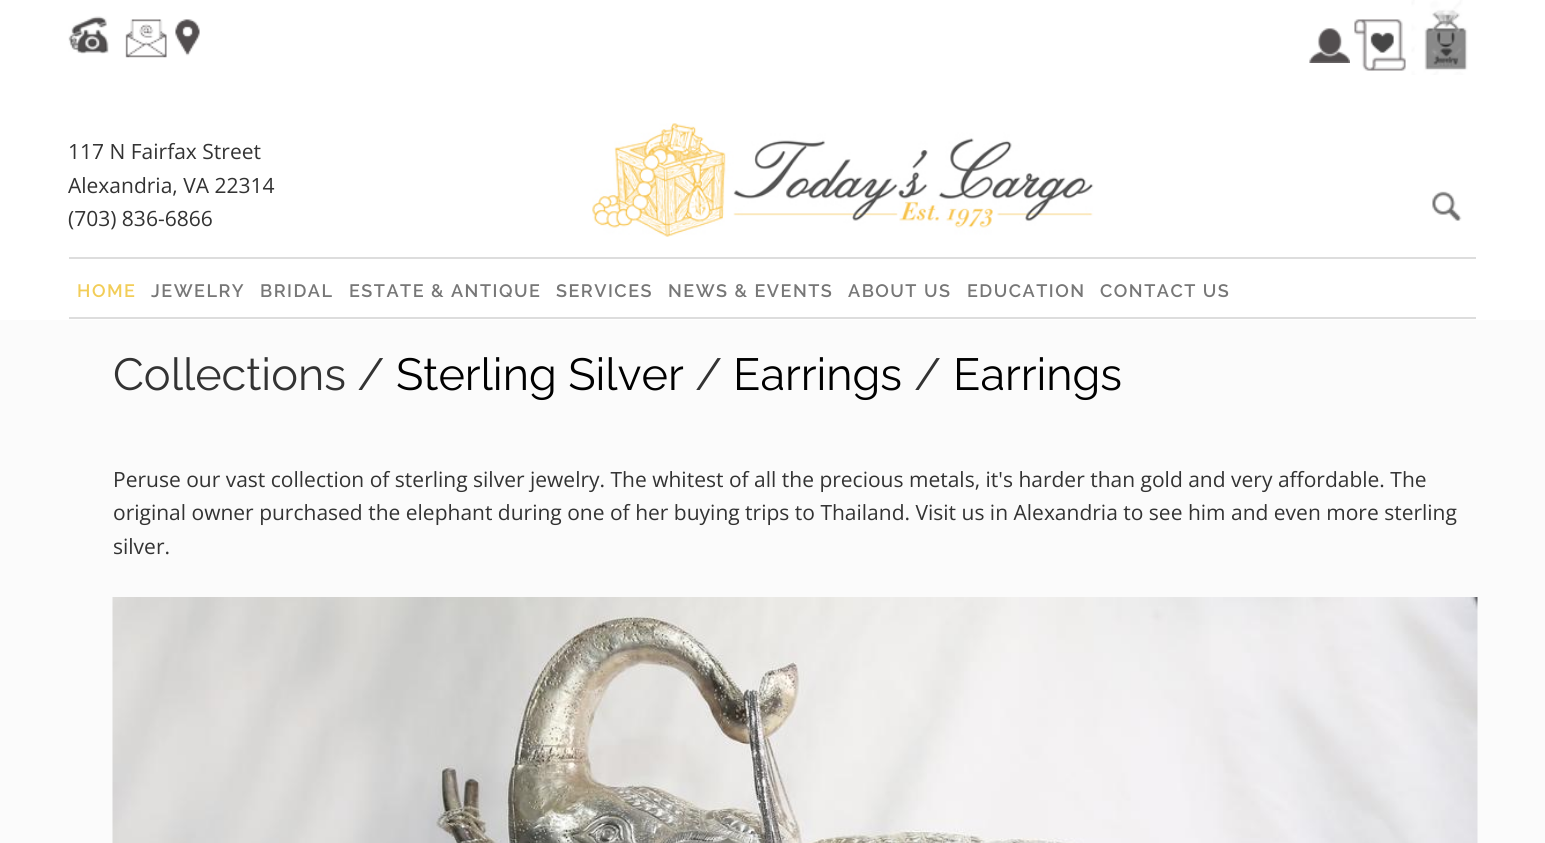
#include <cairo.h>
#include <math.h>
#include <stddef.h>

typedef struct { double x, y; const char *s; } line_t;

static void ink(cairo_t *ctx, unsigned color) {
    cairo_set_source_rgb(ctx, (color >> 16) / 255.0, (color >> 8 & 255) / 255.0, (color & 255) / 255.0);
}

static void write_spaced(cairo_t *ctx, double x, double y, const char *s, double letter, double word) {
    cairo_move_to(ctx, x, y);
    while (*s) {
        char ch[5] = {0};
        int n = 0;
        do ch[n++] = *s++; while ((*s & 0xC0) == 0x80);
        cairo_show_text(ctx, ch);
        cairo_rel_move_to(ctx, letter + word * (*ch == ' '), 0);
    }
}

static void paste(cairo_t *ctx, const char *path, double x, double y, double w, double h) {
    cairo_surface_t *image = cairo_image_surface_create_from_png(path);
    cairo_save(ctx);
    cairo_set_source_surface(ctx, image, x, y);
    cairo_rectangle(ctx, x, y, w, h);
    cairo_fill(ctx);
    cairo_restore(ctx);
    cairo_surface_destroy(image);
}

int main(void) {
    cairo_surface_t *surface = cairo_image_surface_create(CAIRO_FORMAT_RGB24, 1545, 843);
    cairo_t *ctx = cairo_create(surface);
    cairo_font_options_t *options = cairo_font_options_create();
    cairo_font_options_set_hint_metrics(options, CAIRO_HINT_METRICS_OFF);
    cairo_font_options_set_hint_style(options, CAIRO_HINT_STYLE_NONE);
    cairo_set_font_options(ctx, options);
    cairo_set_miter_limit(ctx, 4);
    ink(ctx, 0xFFFFFF);
    cairo_paint(ctx);
    paste(ctx, "media/1.png", 68, 16, 41, 38);
    paste(ctx, "media/2.png", 125, 19, 42, 39);
    paste(ctx, "media/3.png", 175, 19, 25, 37);
    paste(ctx, "media/4.png", 1309, 28, 41, 35);
    paste(ctx, "media/5.png", 1354, 19, 52, 52);
    paste(ctx, "media/6.png", 1411, 0, 57, 75);
    cairo_select_font_face(ctx, "Open Sans", CAIRO_FONT_SLANT_NORMAL, CAIRO_FONT_WEIGHT_NORMAL);
    cairo_set_font_size(ctx, 21);
    ink(ctx, 0x333333);
    {
        static const line_t items[] = {
            {68, 159, "117 N Fairfax Street"},
            {68, 193, "Alexandria, VA 22314"},
            {68, 226, "(703) 836-6866"},
        };
        for (size_t i = 0; i < sizeof items / sizeof *items; i++) {
            cairo_move_to(ctx, items[i].x, items[i].y);
            cairo_show_text(ctx, items[i].s);
        }
    }
    paste(ctx, "media/7.png", 592, 123, 502, 114);
    paste(ctx, "media/8.png", 1432, 191, 30, 30);
    ink(ctx, 0xDDDDDD);
    cairo_rectangle(ctx, 69, 257, 1407, 2);
    cairo_fill(ctx);
    cairo_rectangle(ctx, 69, 317, 1407, 2);
    cairo_fill(ctx);
    cairo_select_font_face(ctx, "Raleway SemiBold", CAIRO_FONT_SLANT_NORMAL, CAIRO_FONT_WEIGHT_NORMAL);
    cairo_set_font_size(ctx, 18);
    ink(ctx, 0xF2CD58);
    write_spaced(ctx, 77, 297, "HOME", 1.5, 0);
    ink(ctx, 0x777777);
    {
        static const line_t items[] = {
            {151, 297, "JEWELRY"},
            {260, 297, "BRIDAL"},
            {349, 297, "ESTATE & ANTIQUE"},
            {556, 297, "SERVICES"},
            {668, 297, "NEWS & EVENTS"},
            {848, 297, "ABOUT US"},
            {967, 297, "EDUCATION"},
            {1100, 297, "CONTACT US"},
        };
        for (size_t i = 0; i < sizeof items / sizeof *items; i++) {
            write_spaced(ctx, items[i].x, items[i].y, items[i].s, 1.5, 0);
        }
    }
    ink(ctx, 0xFBFBFB);
    cairo_rectangle(ctx, 0, 320, 1545, 523);
    cairo_fill(ctx);
    cairo_select_font_face(ctx, "Raleway", CAIRO_FONT_SLANT_NORMAL, CAIRO_FONT_WEIGHT_NORMAL);
    cairo_set_font_size(ctx, 45);
    ink(ctx, 0x333333);
    cairo_move_to(ctx, 113, 390);
    cairo_show_text(ctx, "Collections /");
    ink(ctx, 0x000000);
    cairo_move_to(ctx, 396, 390);
    cairo_show_text(ctx, "Sterling Silver");
    ink(ctx, 0x333333);
    cairo_move_to(ctx, 695, 390);
    cairo_show_text(ctx, "/");
    ink(ctx, 0x000000);
    cairo_move_to(ctx, 733, 390);
    cairo_show_text(ctx, "Earrings");
    ink(ctx, 0x333333);
    cairo_move_to(ctx, 914, 390);
    cairo_show_text(ctx, "/");
    ink(ctx, 0x000000);
    cairo_move_to(ctx, 953, 390);
    cairo_show_text(ctx, "Earrings");
    cairo_select_font_face(ctx, "Open Sans", CAIRO_FONT_SLANT_NORMAL, CAIRO_FONT_WEIGHT_NORMAL);
    cairo_set_font_size(ctx, 21);
    ink(ctx, 0x333333);
    {
        static const line_t items[] = {
            {113, 487, "Peruse our vast collection of sterling silver jewelry. The whitest of all the precious metals, it's harder than gold and very affordable. The"},
            {113, 520, "original owner purchased the elephant during one of her buying trips to Thailand. Visit us in Alexandria to see him and even more sterling"},
            {113, 554, "silver."},
        };
        for (size_t i = 0; i < sizeof items / sizeof *items; i++) {
            cairo_move_to(ctx, items[i].x, items[i].y);
            cairo_show_text(ctx, items[i].s);
        }
    }
    paste(ctx, "media/9.png", 112, 597, 1366, 246);
    cairo_surface_write_to_png(surface, "image.png");
    cairo_font_options_destroy(options);
    cairo_destroy(ctx);
    cairo_surface_destroy(surface);
    return 0;
}
